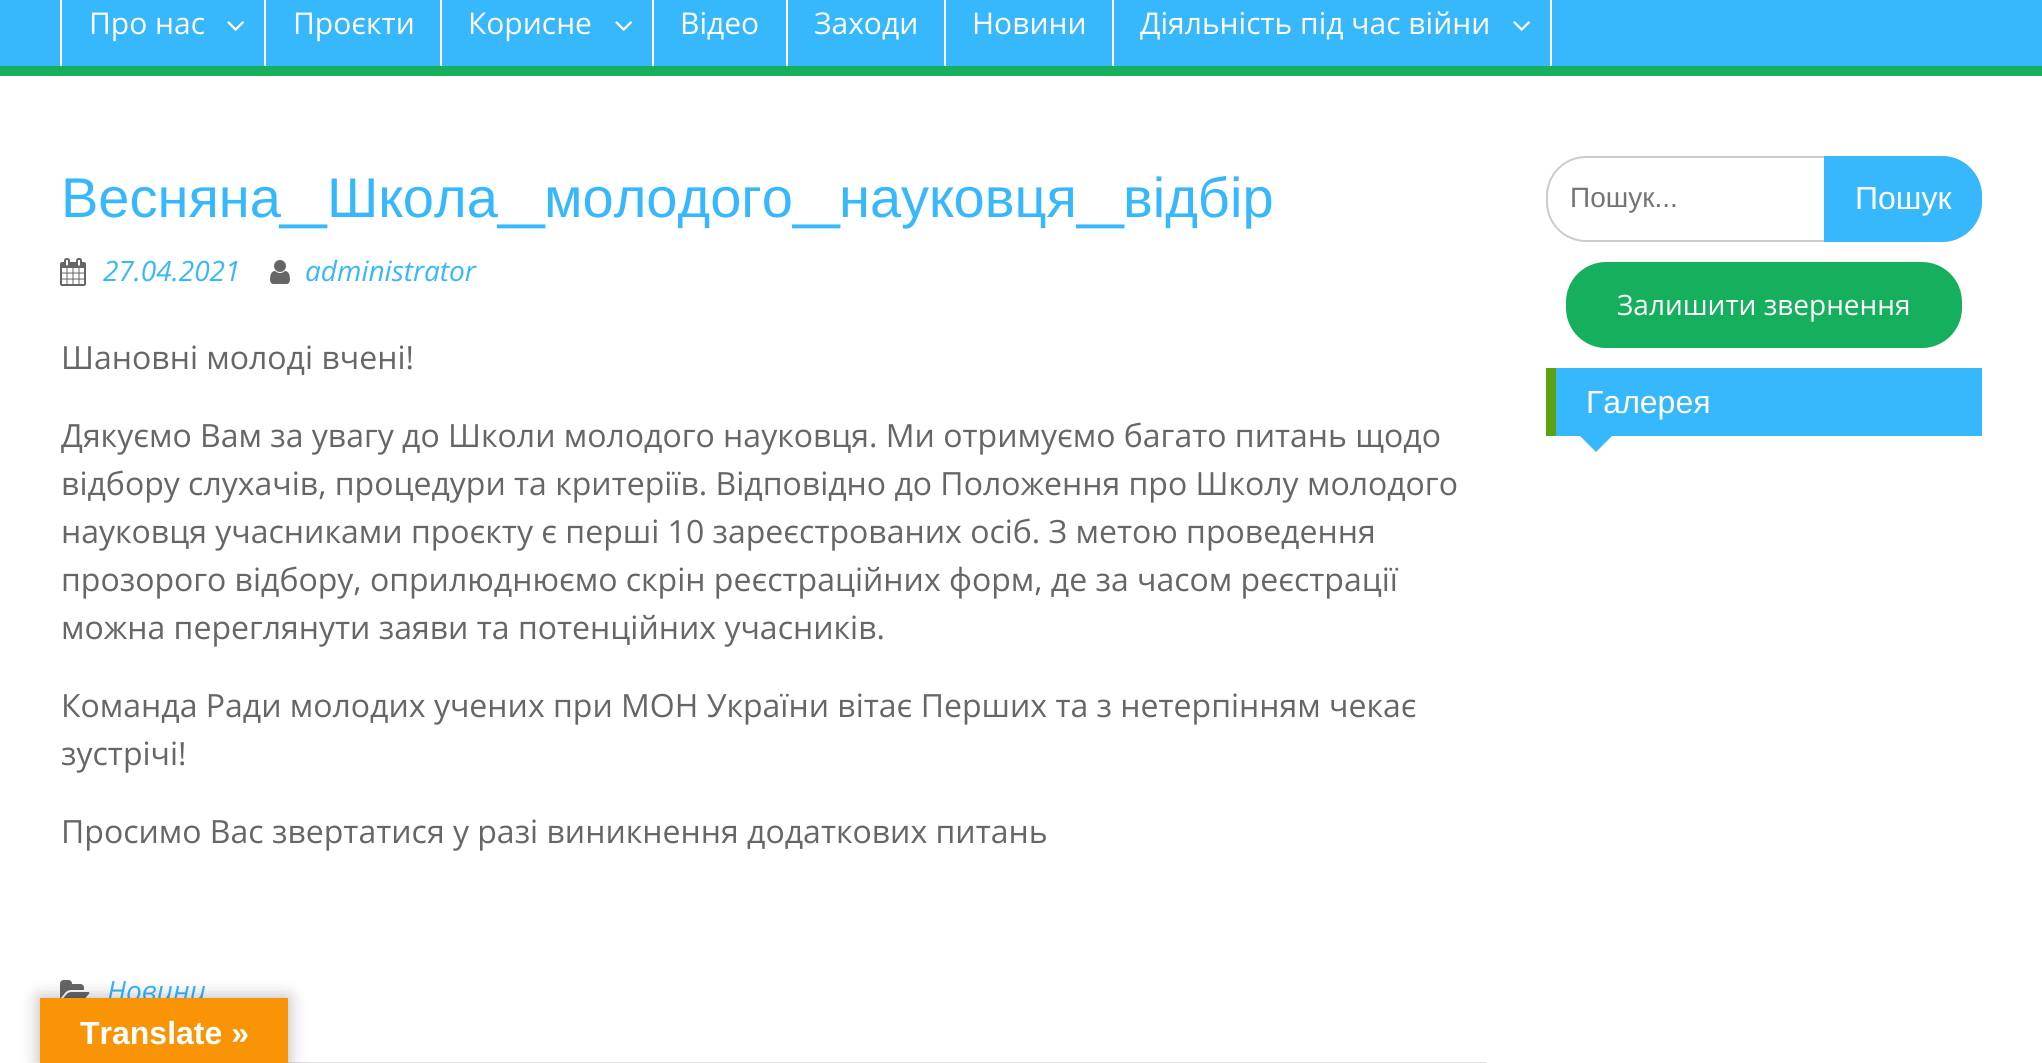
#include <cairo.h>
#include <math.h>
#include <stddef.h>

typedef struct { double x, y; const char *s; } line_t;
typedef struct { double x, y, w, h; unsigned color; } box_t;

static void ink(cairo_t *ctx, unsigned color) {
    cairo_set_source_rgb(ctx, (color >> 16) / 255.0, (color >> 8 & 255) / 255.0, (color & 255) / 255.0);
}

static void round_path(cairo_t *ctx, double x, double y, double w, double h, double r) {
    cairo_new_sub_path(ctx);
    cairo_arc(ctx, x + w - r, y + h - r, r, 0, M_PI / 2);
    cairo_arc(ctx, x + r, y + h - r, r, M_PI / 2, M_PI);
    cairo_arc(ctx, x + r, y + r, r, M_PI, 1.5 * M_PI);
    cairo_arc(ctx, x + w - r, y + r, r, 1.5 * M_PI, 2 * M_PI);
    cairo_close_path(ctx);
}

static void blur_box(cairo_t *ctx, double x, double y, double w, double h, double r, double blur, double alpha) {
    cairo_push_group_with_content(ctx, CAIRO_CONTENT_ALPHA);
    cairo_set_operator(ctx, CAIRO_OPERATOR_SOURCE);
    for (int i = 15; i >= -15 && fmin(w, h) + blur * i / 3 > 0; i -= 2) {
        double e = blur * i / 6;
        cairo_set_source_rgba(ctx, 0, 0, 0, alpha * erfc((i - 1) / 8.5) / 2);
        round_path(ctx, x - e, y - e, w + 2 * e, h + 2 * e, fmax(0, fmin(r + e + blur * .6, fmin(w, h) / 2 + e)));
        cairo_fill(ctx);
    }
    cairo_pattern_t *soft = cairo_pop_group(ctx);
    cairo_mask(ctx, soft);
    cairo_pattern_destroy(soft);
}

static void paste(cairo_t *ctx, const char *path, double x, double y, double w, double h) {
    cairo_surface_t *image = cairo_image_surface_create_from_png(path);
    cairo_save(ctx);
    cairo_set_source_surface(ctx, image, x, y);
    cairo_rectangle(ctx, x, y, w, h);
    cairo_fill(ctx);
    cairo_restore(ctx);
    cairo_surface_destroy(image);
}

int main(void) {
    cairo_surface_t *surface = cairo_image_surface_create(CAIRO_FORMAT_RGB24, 2042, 1063);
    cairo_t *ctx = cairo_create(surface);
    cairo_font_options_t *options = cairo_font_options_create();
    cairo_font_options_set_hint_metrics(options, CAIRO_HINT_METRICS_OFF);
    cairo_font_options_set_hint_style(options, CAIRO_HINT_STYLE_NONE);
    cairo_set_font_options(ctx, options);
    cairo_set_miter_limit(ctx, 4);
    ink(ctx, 0xFFFFFF);
    cairo_paint(ctx);
    {
        static const box_t items[] = {
            {0, 0, 2042, 66, 0x37B7FC},
            {0, 66, 2042, 10, 0x16AF5E},
            {264, 0, 2, 66, 0xFFFFFF},
            {60, 0, 2, 66, 0xFFFFFF},
        };
        for (size_t i = 0; i < sizeof items / sizeof *items; i++) {
            ink(ctx, items[i].color);
            cairo_rectangle(ctx, items[i].x, items[i].y, items[i].w, items[i].h);
            cairo_fill(ctx);
        }
    }
    cairo_select_font_face(ctx, "Open Sans", CAIRO_FONT_SLANT_NORMAL, CAIRO_FONT_WEIGHT_NORMAL);
    cairo_set_font_size(ctx, 30);
    cairo_move_to(ctx, 89, 34);
    cairo_show_text(ctx, "Про нас");
    paste(ctx, "media/1.png", 227, 21, 17, 10);
    cairo_rectangle(ctx, 440, 0, 2, 66);
    cairo_fill(ctx);
    cairo_move_to(ctx, 293, 34);
    cairo_show_text(ctx, "Проєкти");
    cairo_rectangle(ctx, 652, 0, 2, 66);
    cairo_fill(ctx);
    cairo_move_to(ctx, 468, 34);
    cairo_show_text(ctx, "Корисне");
    paste(ctx, "media/1.png", 615, 21, 17, 10);
    cairo_rectangle(ctx, 786, 0, 2, 66);
    cairo_fill(ctx);
    cairo_move_to(ctx, 680, 34);
    cairo_show_text(ctx, "Відео");
    cairo_rectangle(ctx, 944, 0, 2, 66);
    cairo_fill(ctx);
    cairo_move_to(ctx, 814, 34);
    cairo_show_text(ctx, "Заходи");
    cairo_rectangle(ctx, 1112, 0, 2, 66);
    cairo_fill(ctx);
    cairo_move_to(ctx, 972, 34);
    cairo_show_text(ctx, "Новини");
    cairo_rectangle(ctx, 1550, 0, 2, 66);
    cairo_fill(ctx);
    cairo_move_to(ctx, 1140, 34);
    cairo_show_text(ctx, "Діяльність під час війни");
    paste(ctx, "media/1.png", 1513, 21, 17, 10);
    ink(ctx, 0xDDDDDD);
    cairo_rectangle(ctx, 288, 1062, 1198, 1);
    cairo_fill(ctx);
    cairo_select_font_face(ctx, "Liberation Sans", CAIRO_FONT_SLANT_NORMAL, CAIRO_FONT_WEIGHT_NORMAL);
    cairo_set_font_size(ctx, 56);
    ink(ctx, 0x37B7FC);
    cairo_move_to(ctx, 61, 217);
    cairo_show_text(ctx, "Весняна");
    cairo_select_font_face(ctx, "Merriweather Sans", CAIRO_FONT_SLANT_NORMAL, CAIRO_FONT_WEIGHT_NORMAL);
    cairo_move_to(ctx, 280, 217);
    cairo_show_text(ctx, "_");
    cairo_select_font_face(ctx, "Liberation Sans", CAIRO_FONT_SLANT_NORMAL, CAIRO_FONT_WEIGHT_NORMAL);
    cairo_move_to(ctx, 327, 217);
    cairo_show_text(ctx, "Школа");
    cairo_select_font_face(ctx, "Merriweather Sans", CAIRO_FONT_SLANT_NORMAL, CAIRO_FONT_WEIGHT_NORMAL);
    cairo_move_to(ctx, 498, 217);
    cairo_show_text(ctx, "_");
    cairo_select_font_face(ctx, "Liberation Sans", CAIRO_FONT_SLANT_NORMAL, CAIRO_FONT_WEIGHT_NORMAL);
    cairo_move_to(ctx, 544, 217);
    cairo_show_text(ctx, "молодого");
    cairo_select_font_face(ctx, "Merriweather Sans", CAIRO_FONT_SLANT_NORMAL, CAIRO_FONT_WEIGHT_NORMAL);
    cairo_move_to(ctx, 793, 217);
    cairo_show_text(ctx, "_");
    cairo_select_font_face(ctx, "Liberation Sans", CAIRO_FONT_SLANT_NORMAL, CAIRO_FONT_WEIGHT_NORMAL);
    cairo_move_to(ctx, 839, 217);
    cairo_show_text(ctx, "науковця");
    cairo_select_font_face(ctx, "Merriweather Sans", CAIRO_FONT_SLANT_NORMAL, CAIRO_FONT_WEIGHT_NORMAL);
    cairo_move_to(ctx, 1077, 217);
    cairo_show_text(ctx, "_");
    cairo_select_font_face(ctx, "Liberation Sans", CAIRO_FONT_SLANT_NORMAL, CAIRO_FONT_WEIGHT_NORMAL);
    cairo_move_to(ctx, 1123, 217);
    cairo_show_text(ctx, "відбір");
    paste(ctx, "media/2.png", 60, 258, 26, 28);
    cairo_select_font_face(ctx, "Open Sans", CAIRO_FONT_SLANT_ITALIC, CAIRO_FONT_WEIGHT_NORMAL);
    cairo_set_font_size(ctx, 28);
    cairo_move_to(ctx, 103, 281);
    cairo_show_text(ctx, "27.04.2021");
    paste(ctx, "media/3.png", 270, 260, 20, 24);
    cairo_move_to(ctx, 305, 281);
    cairo_show_text(ctx, "administrator");
    cairo_select_font_face(ctx, "Open Sans", CAIRO_FONT_SLANT_NORMAL, CAIRO_FONT_WEIGHT_NORMAL);
    cairo_set_font_size(ctx, 32);
    ink(ctx, 0x666666);
    {
        static const line_t items[] = {
            {61, 369, "Шановні молоді вчені!"},
            {61, 447, "Дякуємо Вам за увагу до Школи молодого науковця. Ми отримуємо багато питань щодо"},
            {61, 495, "відбору слухачів, процедури та критеріїв. Відповідно до Положення про Школу молодого"},
            {61, 543, "науковця учасниками проєкту є перші 10 зареєстрованих осіб. З метою проведення"},
            {61, 591, "прозорого відбору, оприлюднюємо скрін реєстраційних форм, де за часом реєстрації"},
            {61, 639, "можна переглянути заяви та потенційних учасників."},
            {61, 717, "Команда Ради молодих учених при МОН України вітає Перших та з нетерпінням чекає"},
            {61, 765, "зустрічі!"},
            {61, 843, "Просимо Вас звертатися у разі виникнення додаткових питань"},
        };
        for (size_t i = 0; i < sizeof items / sizeof *items; i++) {
            cairo_move_to(ctx, items[i].x, items[i].y);
            cairo_show_text(ctx, items[i].s);
        }
    }
    paste(ctx, "media/4.png", 60, 980, 30, 18);
    cairo_select_font_face(ctx, "Open Sans", CAIRO_FONT_SLANT_ITALIC, CAIRO_FONT_WEIGHT_NORMAL);
    cairo_set_font_size(ctx, 28);
    ink(ctx, 0x37B7FC);
    cairo_move_to(ctx, 107, 1001);
    cairo_show_text(ctx, "Новини");
    round_path(ctx, 1547, 157, 434, 84, 39);
    ink(ctx, 0xCCCCCC);
    cairo_stroke(ctx);
    cairo_select_font_face(ctx, "Liberation Sans", CAIRO_FONT_SLANT_NORMAL, CAIRO_FONT_WEIGHT_NORMAL);
    ink(ctx, 0x757575);
    cairo_move_to(ctx, 1570, 207);
    cairo_show_text(ctx, "Пошук...");
    ink(ctx, 0x37B7FC);
    cairo_new_path(ctx);
    cairo_move_to(ctx, 1824, 156);
    cairo_line_to(ctx, 1942, 156);
    cairo_curve_to(ctx, 1964, 156, 1982, 174, 1982, 196);
    cairo_line_to(ctx, 1982, 202);
    cairo_curve_to(ctx, 1982, 224, 1964, 242, 1942, 242);
    cairo_line_to(ctx, 1824, 242);
    cairo_close_path(ctx);
    cairo_fill(ctx);
    cairo_set_font_size(ctx, 32);
    ink(ctx, 0xFFFFFF);
    cairo_move_to(ctx, 1855, 209);
    cairo_show_text(ctx, "Пошук");
    ink(ctx, 0x16AF5E);
    round_path(ctx, 1568, 264, 392, 82, 38);
    cairo_fill_preserve(ctx);
    cairo_set_line_width(ctx, 4);
    cairo_stroke(ctx);
    cairo_select_font_face(ctx, "Open Sans", CAIRO_FONT_SLANT_NORMAL, CAIRO_FONT_WEIGHT_NORMAL);
    cairo_set_font_size(ctx, 28);
    ink(ctx, 0xFFFFFF);
    cairo_move_to(ctx, 1617, 315);
    cairo_show_text(ctx, "Залишити звернення");
    ink(ctx, 0x37B7FC);
    cairo_rectangle(ctx, 1556, 368, 426, 68);
    cairo_fill(ctx);
    ink(ctx, 0x5BA313);
    cairo_rectangle(ctx, 1546, 368, 10, 68);
    cairo_fill(ctx);
    cairo_select_font_face(ctx, "Liberation Sans", CAIRO_FONT_SLANT_NORMAL, CAIRO_FONT_WEIGHT_NORMAL);
    cairo_set_font_size(ctx, 32);
    ink(ctx, 0xFFFFFF);
    cairo_move_to(ctx, 1586, 413);
    cairo_show_text(ctx, "Галерея");
    ink(ctx, 0x37B7FC);
    cairo_new_path(ctx);
    cairo_move_to(ctx, 1578, 434);
    cairo_line_to(ctx, 1614, 434);
    cairo_line_to(ctx, 1596, 452);
    cairo_close_path(ctx);
    cairo_fill(ctx);
    ink(ctx, 0x000000);
    blur_box(ctx, 40, 998, 248, 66, 0, 9, 0.3);
    ink(ctx, 0xF89406);
    cairo_rectangle(ctx, 40, 998, 248, 65);
    cairo_fill(ctx);
    cairo_select_font_face(ctx, "Liberation Sans", CAIRO_FONT_SLANT_NORMAL, CAIRO_FONT_WEIGHT_BOLD);
    ink(ctx, 0xFFFFFF);
    cairo_move_to(ctx, 80, 1044);
    cairo_show_text(ctx, "Translate »");
    cairo_surface_write_to_png(surface, "image.png");
    cairo_font_options_destroy(options);
    cairo_destroy(ctx);
    cairo_surface_destroy(surface);
    return 0;
}
